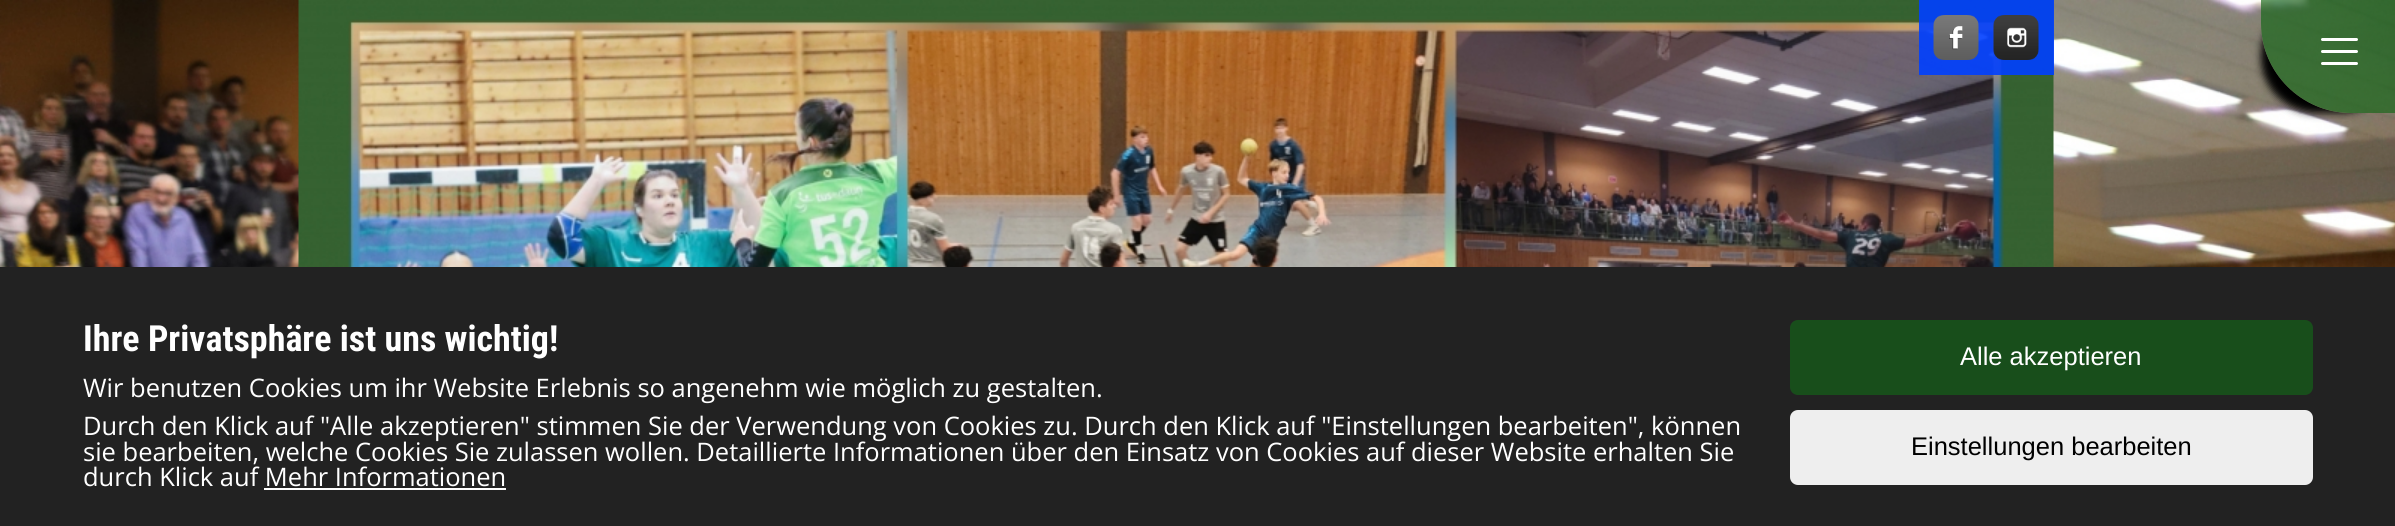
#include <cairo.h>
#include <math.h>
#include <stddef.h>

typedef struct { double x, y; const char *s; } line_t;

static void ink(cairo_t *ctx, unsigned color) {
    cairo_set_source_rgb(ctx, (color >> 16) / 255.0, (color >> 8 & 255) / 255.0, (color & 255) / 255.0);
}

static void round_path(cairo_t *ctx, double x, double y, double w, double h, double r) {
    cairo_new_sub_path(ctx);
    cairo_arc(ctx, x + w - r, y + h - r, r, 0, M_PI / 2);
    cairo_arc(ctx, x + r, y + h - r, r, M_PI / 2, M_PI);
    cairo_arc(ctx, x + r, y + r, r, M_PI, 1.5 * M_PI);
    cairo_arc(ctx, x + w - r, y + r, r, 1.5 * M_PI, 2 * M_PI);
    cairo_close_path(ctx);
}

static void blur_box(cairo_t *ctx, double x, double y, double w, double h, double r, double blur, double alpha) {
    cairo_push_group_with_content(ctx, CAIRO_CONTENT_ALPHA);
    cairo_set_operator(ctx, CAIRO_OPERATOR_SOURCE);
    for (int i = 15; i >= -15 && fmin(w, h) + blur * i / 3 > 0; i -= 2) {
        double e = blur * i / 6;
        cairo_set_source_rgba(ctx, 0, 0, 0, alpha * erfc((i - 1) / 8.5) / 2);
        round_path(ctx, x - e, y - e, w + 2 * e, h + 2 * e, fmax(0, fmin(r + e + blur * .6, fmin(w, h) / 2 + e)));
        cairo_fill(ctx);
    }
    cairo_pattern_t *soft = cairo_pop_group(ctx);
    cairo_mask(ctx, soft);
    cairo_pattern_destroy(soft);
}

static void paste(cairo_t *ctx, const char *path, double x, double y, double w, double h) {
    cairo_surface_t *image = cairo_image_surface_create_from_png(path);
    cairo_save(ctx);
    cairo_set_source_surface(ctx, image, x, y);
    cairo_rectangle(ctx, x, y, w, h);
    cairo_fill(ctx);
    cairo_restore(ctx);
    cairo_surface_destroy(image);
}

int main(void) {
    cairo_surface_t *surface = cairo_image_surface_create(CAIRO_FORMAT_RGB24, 2395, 526);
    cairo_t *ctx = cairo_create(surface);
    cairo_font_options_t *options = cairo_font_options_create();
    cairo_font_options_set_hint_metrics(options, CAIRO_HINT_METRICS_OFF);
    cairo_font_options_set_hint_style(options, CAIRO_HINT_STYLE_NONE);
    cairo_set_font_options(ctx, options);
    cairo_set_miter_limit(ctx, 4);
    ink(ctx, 0xFFFFFF);
    cairo_paint(ctx);
    paste(ctx, "media/1.png", 0, 0, 2395, 267);
    paste(ctx, "media/2.png", 298, 0, 1756, 267);
    cairo_set_source_rgba(ctx, 0, 0.251, 1, 0.9);
    cairo_rectangle(ctx, 1919, 0, 135, 75);
    cairo_fill(ctx);
    paste(ctx, "media/3.png", 1933, 15, 46, 45);
    paste(ctx, "media/4.png", 1993, 15, 46, 45);
    cairo_save(ctx);
    cairo_set_fill_rule(ctx, CAIRO_FILL_RULE_EVEN_ODD);
    cairo_new_path(ctx);
    cairo_move_to(ctx, 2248, 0);
    cairo_line_to(ctx, 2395, 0);
    cairo_line_to(ctx, 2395, 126);
    cairo_line_to(ctx, 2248, 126);
    cairo_close_path(ctx);
    cairo_move_to(ctx, 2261, 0);
    cairo_line_to(ctx, 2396, 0);
    cairo_line_to(ctx, 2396, 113);
    cairo_line_to(ctx, 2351, 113);
    cairo_curve_to(ctx, 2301.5, 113, 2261, 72.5, 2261, 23);
    cairo_close_path(ctx);
    cairo_clip(ctx);
    ink(ctx, 0x000000);
    blur_box(ctx, 2261, 0, 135, 113, 90, 4, 1);
    cairo_restore(ctx);
    cairo_set_source_rgba(ctx, 0.075, 0.4, 0.09, 0.65);
    cairo_new_path(ctx);
    cairo_move_to(ctx, 2261, 0);
    cairo_line_to(ctx, 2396, 0);
    cairo_line_to(ctx, 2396, 113);
    cairo_line_to(ctx, 2351, 113);
    cairo_curve_to(ctx, 2301.5, 113, 2261, 72.5, 2261, 23);
    cairo_close_path(ctx);
    cairo_fill(ctx);
    ink(ctx, 0xFFFFFF);
    round_path(ctx, 2321, 38, 37, 3, 1.5);
    cairo_fill(ctx);
    round_path(ctx, 2321, 50, 37, 3, 1.5);
    cairo_fill(ctx);
    round_path(ctx, 2321, 62, 37, 3, 1.5);
    cairo_fill(ctx);
    ink(ctx, 0x222222);
    cairo_rectangle(ctx, 0, 267, 2395, 259);
    cairo_fill(ctx);
    cairo_select_font_face(ctx, "Roboto Condensed", CAIRO_FONT_SLANT_NORMAL, CAIRO_FONT_WEIGHT_BOLD);
    cairo_set_font_size(ctx, 36);
    ink(ctx, 0xFFFFFF);
    cairo_move_to(ctx, 83, 351);
    cairo_show_text(ctx, "Ihre Privatsphäre ist uns wichtig!");
    cairo_select_font_face(ctx, "Open Sans", CAIRO_FONT_SLANT_NORMAL, CAIRO_FONT_WEIGHT_NORMAL);
    cairo_set_font_size(ctx, 25.5);
    {
        static const line_t items[] = {
            {83, 397, "Wir benutzen Cookies um ihr Website Erlebnis so angenehm wie möglich zu gestalten."},
            {83, 435, "Durch den Klick auf \"Alle akzeptieren\" stimmen Sie der Verwendung von Cookies zu. Durch den Klick auf \"Einstellungen bearbeiten\", können"},
            {83, 461, "sie bearbeiten, welche Cookies Sie zulassen wollen. Detaillierte Informationen über den Einsatz von Cookies auf dieser Website erhalten Sie"},
            {83, 486, "durch Klick auf Mehr Informationen"},
        };
        for (size_t i = 0; i < sizeof items / sizeof *items; i++) {
            cairo_move_to(ctx, items[i].x, items[i].y);
            cairo_show_text(ctx, items[i].s);
        }
    }
    cairo_rectangle(ctx, 264, 488, 242, 2);
    cairo_fill(ctx);
    ink(ctx, 0x184E1B);
    round_path(ctx, 1790, 320, 523, 75, 8);
    cairo_fill(ctx);
    cairo_select_font_face(ctx, "Liberation Sans", CAIRO_FONT_SLANT_NORMAL, CAIRO_FONT_WEIGHT_NORMAL);
    ink(ctx, 0xFFFFFF);
    cairo_move_to(ctx, 1960, 365);
    cairo_show_text(ctx, "Alle akzeptieren");
    ink(ctx, 0xEEEEEE);
    round_path(ctx, 1790, 410, 523, 75, 8);
    cairo_fill(ctx);
    ink(ctx, 0x000000);
    cairo_move_to(ctx, 1911, 455);
    cairo_show_text(ctx, "Einstellungen bearbeiten");
    cairo_surface_write_to_png(surface, "image.png");
    cairo_font_options_destroy(options);
    cairo_destroy(ctx);
    cairo_surface_destroy(surface);
    return 0;
}
